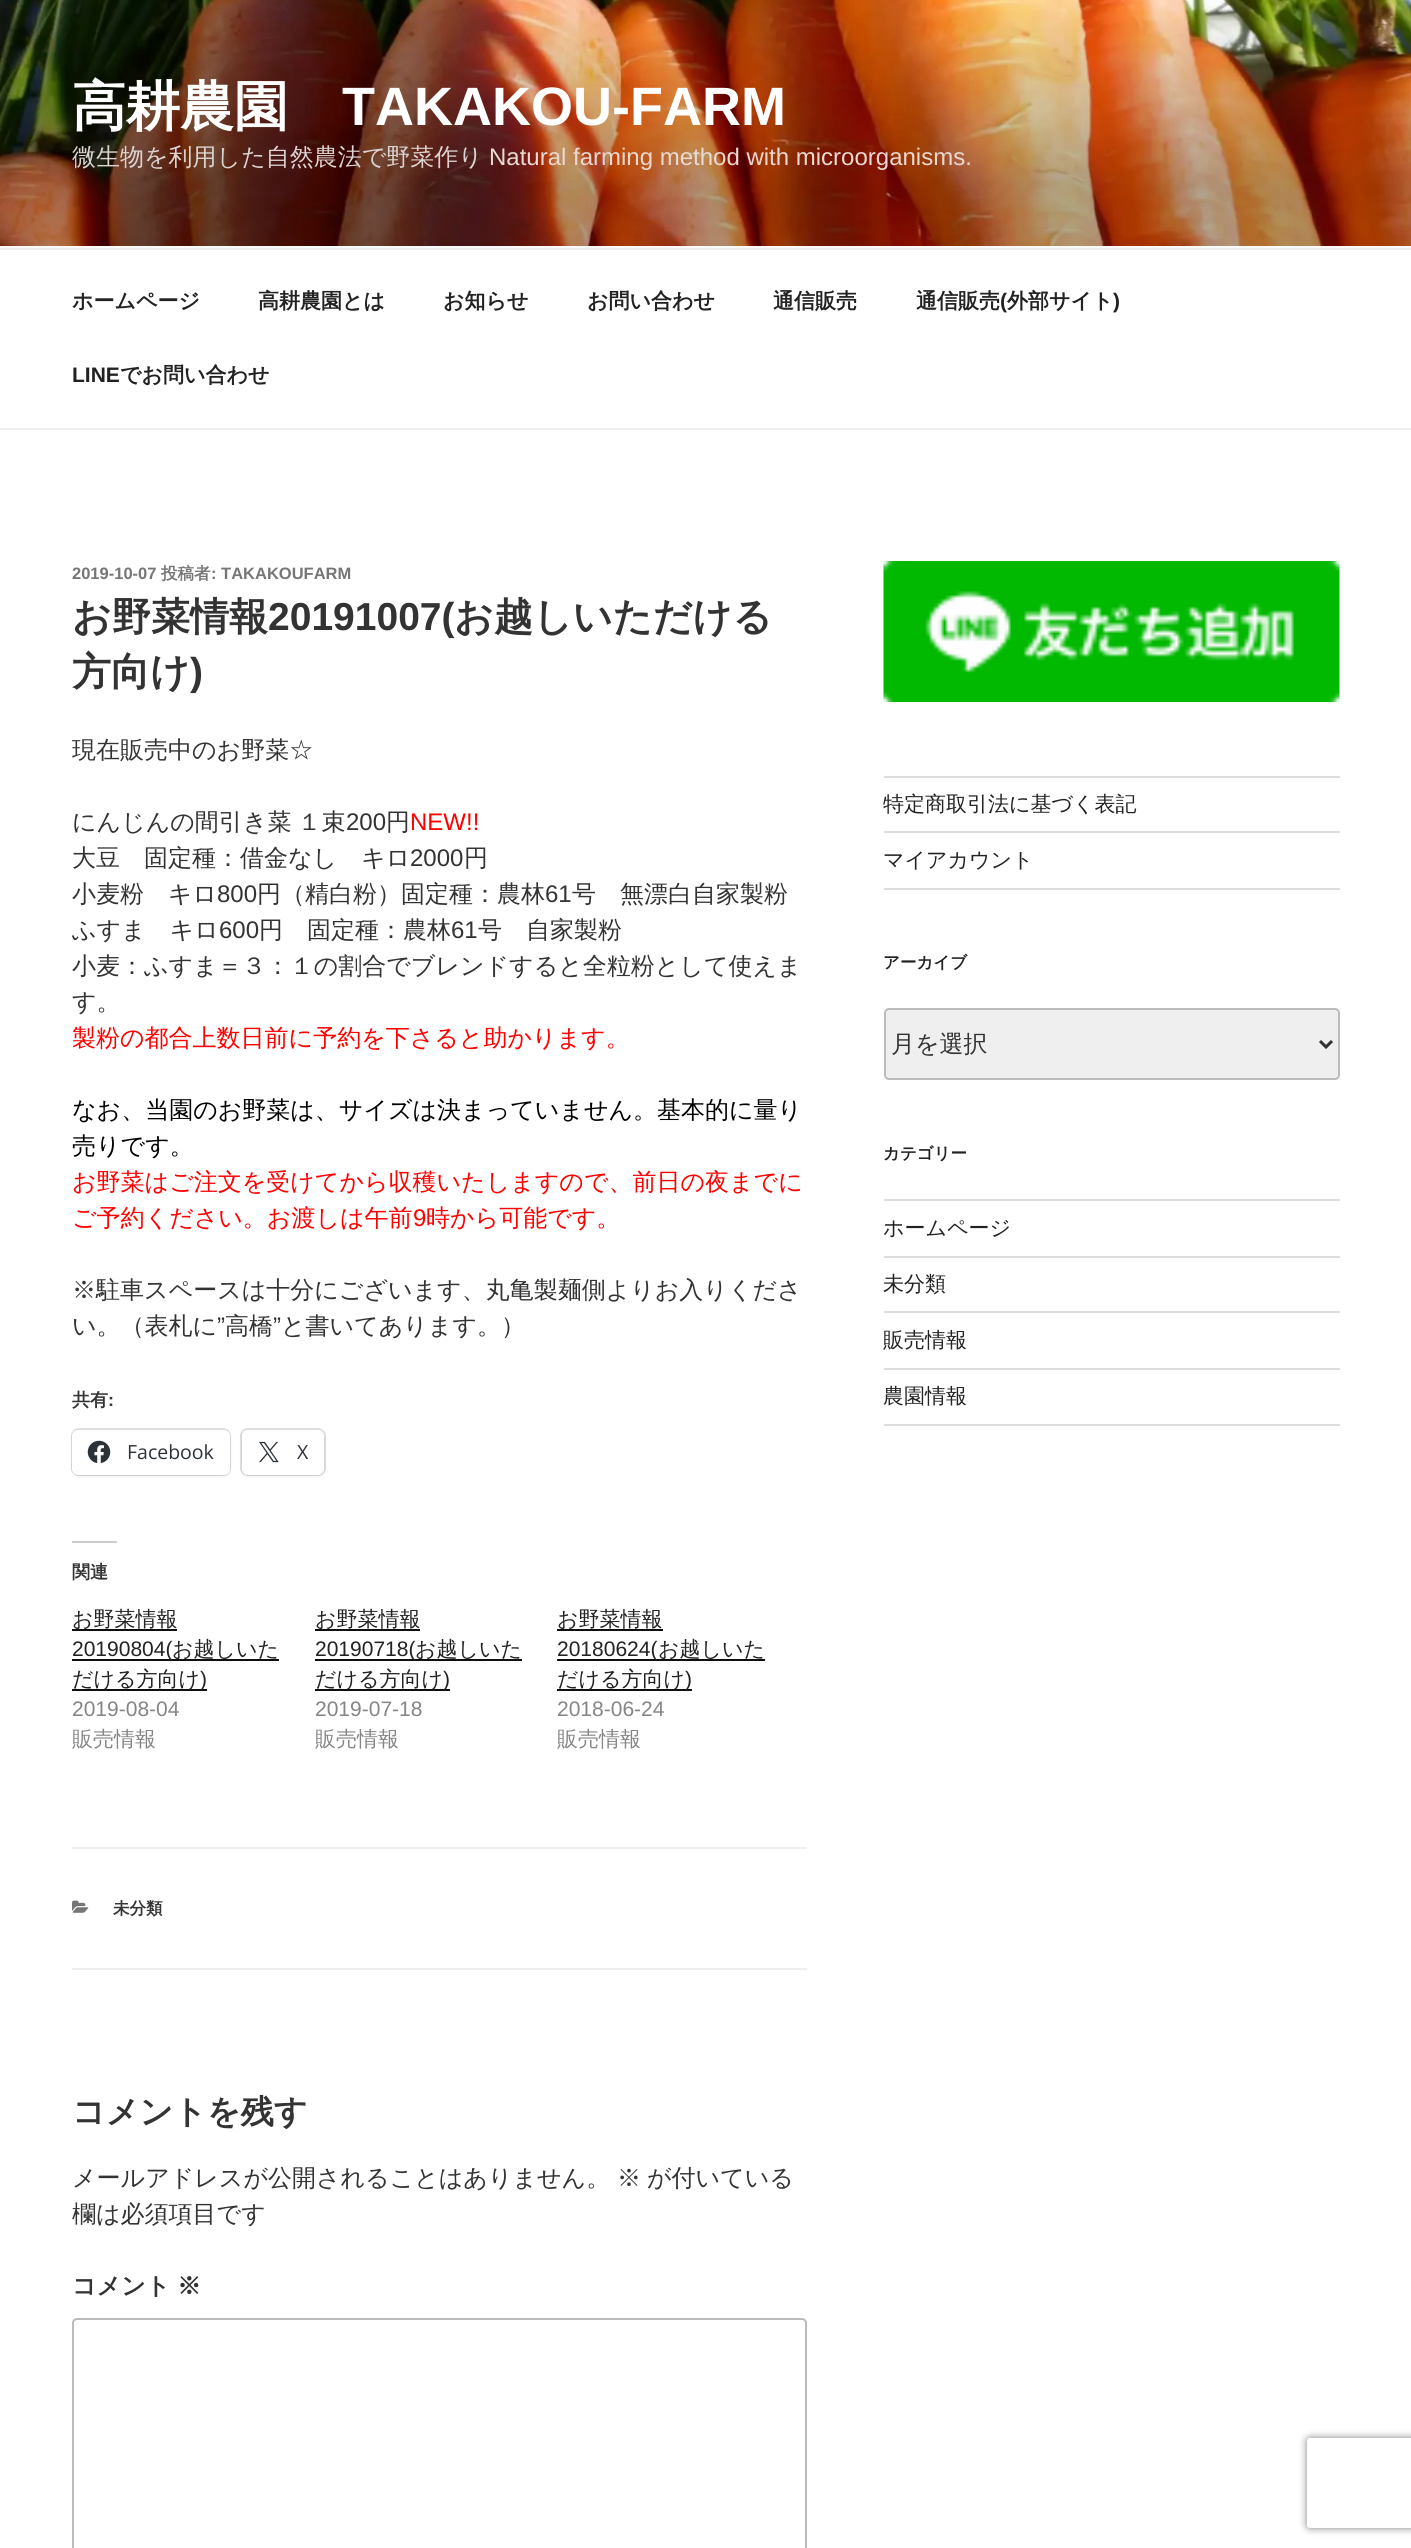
#include <cairo.h>
#include <math.h>
#include <stddef.h>

typedef struct { double x, y; const char *s; } line_t;

static void ink(cairo_t *ctx, unsigned color) {
    cairo_set_source_rgb(ctx, (color >> 16) / 255.0, (color >> 8 & 255) / 255.0, (color & 255) / 255.0);
}

static void write_spaced(cairo_t *ctx, double x, double y, const char *s, double letter, double word) {
    cairo_move_to(ctx, x, y);
    while (*s) {
        char ch[5] = {0};
        int n = 0;
        do ch[n++] = *s++; while ((*s & 0xC0) == 0x80);
        cairo_show_text(ctx, ch);
        cairo_rel_move_to(ctx, letter + word * (*ch == ' '), 0);
    }
}

static void round_path(cairo_t *ctx, double x, double y, double w, double h, double r) {
    cairo_new_sub_path(ctx);
    cairo_arc(ctx, x + w - r, y + h - r, r, 0, M_PI / 2);
    cairo_arc(ctx, x + r, y + h - r, r, M_PI / 2, M_PI);
    cairo_arc(ctx, x + r, y + r, r, M_PI, 1.5 * M_PI);
    cairo_arc(ctx, x + w - r, y + r, r, 1.5 * M_PI, 2 * M_PI);
    cairo_close_path(ctx);
}

static void blur_box(cairo_t *ctx, double x, double y, double w, double h, double r, double blur, double alpha) {
    cairo_push_group_with_content(ctx, CAIRO_CONTENT_ALPHA);
    cairo_set_operator(ctx, CAIRO_OPERATOR_SOURCE);
    for (int i = 15; i >= -15 && fmin(w, h) + blur * i / 3 > 0; i -= 2) {
        double e = blur * i / 6;
        cairo_set_source_rgba(ctx, 0, 0, 0, alpha * erfc((i - 1) / 8.5) / 2);
        round_path(ctx, x - e, y - e, w + 2 * e, h + 2 * e, fmax(0, fmin(r + e + blur * .6, fmin(w, h) / 2 + e)));
        cairo_fill(ctx);
    }
    cairo_pattern_t *soft = cairo_pop_group(ctx);
    cairo_mask(ctx, soft);
    cairo_pattern_destroy(soft);
}

static void paste(cairo_t *ctx, const char *path, double x, double y, double w, double h) {
    cairo_surface_t *image = cairo_image_surface_create_from_png(path);
    cairo_save(ctx);
    cairo_set_source_surface(ctx, image, x, y);
    cairo_rectangle(ctx, x, y, w, h);
    cairo_fill(ctx);
    cairo_restore(ctx);
    cairo_surface_destroy(image);
}

int main(void) {
    cairo_surface_t *surface = cairo_image_surface_create(CAIRO_FORMAT_RGB24, 1411, 2548);
    cairo_t *ctx = cairo_create(surface);
    cairo_font_options_t *options = cairo_font_options_create();
    cairo_font_options_set_hint_metrics(options, CAIRO_HINT_METRICS_OFF);
    cairo_font_options_set_hint_style(options, CAIRO_HINT_STYLE_NONE);
    cairo_set_font_options(ctx, options);
    cairo_set_miter_limit(ctx, 4);
    ink(ctx, 0xFFFFFF);
    cairo_paint(ctx);
    ink(ctx, 0xFAFAFA);
    cairo_rectangle(ctx, 0, 246, 1411, 2);
    cairo_fill(ctx);
    paste(ctx, "media/1.png", 0, 0, 1411, 246);
    cairo_select_font_face(ctx, "WenQuanYi Zen Hei", CAIRO_FONT_SLANT_NORMAL, CAIRO_FONT_WEIGHT_BOLD);
    cairo_set_font_size(ctx, 54);
    ink(ctx, 0xFFFFFF);
    cairo_move_to(ctx, 72, 125);
    cairo_show_text(ctx, "高耕農園");
    cairo_select_font_face(ctx, "Liberation Sans", CAIRO_FONT_SLANT_NORMAL, CAIRO_FONT_WEIGHT_BOLD);
    cairo_move_to(ctx, 342, 125);
    cairo_show_text(ctx, "TAKAKOU-FARM");
    cairo_select_font_face(ctx, "WenQuanYi Zen Hei Medium", CAIRO_FONT_SLANT_NORMAL, CAIRO_FONT_WEIGHT_NORMAL);
    cairo_set_font_size(ctx, 24);
    ink(ctx, 0xDCD3D1);
    cairo_move_to(ctx, 72, 165);
    cairo_show_text(ctx, "微生物を利用した自然農法で野菜作り");
    cairo_select_font_face(ctx, "Liberation Sans", CAIRO_FONT_SLANT_NORMAL, CAIRO_FONT_WEIGHT_NORMAL);
    ink(ctx, 0xEAD8D1);
    cairo_move_to(ctx, 489, 165);
    cairo_show_text(ctx, "Natural farming method with microorganisms.");
    ink(ctx, 0xEEEEEE);
    cairo_rectangle(ctx, 0, 248, 1411, 2);
    cairo_fill(ctx);
    cairo_rectangle(ctx, 0, 428, 1411, 2);
    cairo_fill(ctx);
    cairo_select_font_face(ctx, "WenQuanYi Zen Hei", CAIRO_FONT_SLANT_NORMAL, CAIRO_FONT_WEIGHT_BOLD);
    cairo_set_font_size(ctx, 21);
    ink(ctx, 0x222222);
    {
        static const line_t items[] = {
            {72, 308, "ホームページ"},
            {258, 308, "高耕農園とは"},
            {443, 308, "お知らせ"},
            {587, 308, "お問い合わせ"},
            {773, 308, "通信販売"},
            {916, 308, "通信販売"},
        };
        for (size_t i = 0; i < sizeof items / sizeof *items; i++) {
            cairo_move_to(ctx, items[i].x, items[i].y);
            cairo_show_text(ctx, items[i].s);
        }
    }
    cairo_select_font_face(ctx, "Liberation Sans", CAIRO_FONT_SLANT_NORMAL, CAIRO_FONT_WEIGHT_BOLD);
    cairo_move_to(ctx, 1000, 308);
    cairo_show_text(ctx, "(");
    cairo_select_font_face(ctx, "WenQuanYi Zen Hei", CAIRO_FONT_SLANT_NORMAL, CAIRO_FONT_WEIGHT_BOLD);
    cairo_move_to(ctx, 1007, 308);
    cairo_show_text(ctx, "外部サイト");
    cairo_select_font_face(ctx, "Liberation Sans", CAIRO_FONT_SLANT_NORMAL, CAIRO_FONT_WEIGHT_BOLD);
    cairo_move_to(ctx, 1113, 308);
    cairo_show_text(ctx, ")");
    cairo_move_to(ctx, 72, 382);
    cairo_show_text(ctx, "LINE");
    cairo_select_font_face(ctx, "WenQuanYi Zen Hei", CAIRO_FONT_SLANT_NORMAL, CAIRO_FONT_WEIGHT_BOLD);
    cairo_move_to(ctx, 120, 382);
    cairo_show_text(ctx, "でお問い合わせ");
    cairo_select_font_face(ctx, "Liberation Sans", CAIRO_FONT_SLANT_NORMAL, CAIRO_FONT_WEIGHT_BOLD);
    cairo_set_font_size(ctx, 16.5);
    ink(ctx, 0x767676);
    cairo_move_to(ctx, 72, 579);
    cairo_show_text(ctx, "2019-10-07");
    cairo_select_font_face(ctx, "WenQuanYi Zen Hei", CAIRO_FONT_SLANT_NORMAL, CAIRO_FONT_WEIGHT_BOLD);
    cairo_move_to(ctx, 161, 579);
    cairo_show_text(ctx, "投稿者");
    cairo_select_font_face(ctx, "Liberation Sans", CAIRO_FONT_SLANT_NORMAL, CAIRO_FONT_WEIGHT_BOLD);
    cairo_move_to(ctx, 211, 579);
    cairo_show_text(ctx, ": TAKAKOUFARM");
    cairo_select_font_face(ctx, "WenQuanYi Zen Hei", CAIRO_FONT_SLANT_NORMAL, CAIRO_FONT_WEIGHT_BOLD);
    cairo_set_font_size(ctx, 39);
    ink(ctx, 0x333333);
    cairo_move_to(ctx, 72, 630);
    cairo_show_text(ctx, "お野菜情報");
    cairo_select_font_face(ctx, "Liberation Sans", CAIRO_FONT_SLANT_NORMAL, CAIRO_FONT_WEIGHT_BOLD);
    cairo_move_to(ctx, 268, 630);
    cairo_show_text(ctx, "20191007(");
    cairo_select_font_face(ctx, "WenQuanYi Zen Hei", CAIRO_FONT_SLANT_NORMAL, CAIRO_FONT_WEIGHT_BOLD);
    cairo_move_to(ctx, 454, 630);
    cairo_show_text(ctx, "お越しいただける");
    cairo_move_to(ctx, 72, 685);
    cairo_show_text(ctx, "方向け");
    cairo_select_font_face(ctx, "Liberation Sans", CAIRO_FONT_SLANT_NORMAL, CAIRO_FONT_WEIGHT_BOLD);
    cairo_move_to(ctx, 190, 685);
    cairo_show_text(ctx, ")");
    cairo_select_font_face(ctx, "WenQuanYi Zen Hei Medium", CAIRO_FONT_SLANT_NORMAL, CAIRO_FONT_WEIGHT_NORMAL);
    cairo_set_font_size(ctx, 24);
    cairo_move_to(ctx, 72, 758);
    cairo_show_text(ctx, "現在販売中のお野菜☆");
    write_spaced(ctx, 72, 830, "にんじんの間引き菜 １束", 0, -1);
    cairo_select_font_face(ctx, "Liberation Sans", CAIRO_FONT_SLANT_NORMAL, CAIRO_FONT_WEIGHT_NORMAL);
    cairo_move_to(ctx, 346, 830);
    cairo_show_text(ctx, "200");
    cairo_select_font_face(ctx, "WenQuanYi Zen Hei Medium", CAIRO_FONT_SLANT_NORMAL, CAIRO_FONT_WEIGHT_NORMAL);
    cairo_move_to(ctx, 386, 830);
    cairo_show_text(ctx, "円");
    cairo_select_font_face(ctx, "Liberation Sans", CAIRO_FONT_SLANT_NORMAL, CAIRO_FONT_WEIGHT_NORMAL);
    ink(ctx, 0xFF0000);
    cairo_move_to(ctx, 410, 830);
    cairo_show_text(ctx, "NEW!!");
    cairo_select_font_face(ctx, "WenQuanYi Zen Hei Medium", CAIRO_FONT_SLANT_NORMAL, CAIRO_FONT_WEIGHT_NORMAL);
    ink(ctx, 0x333333);
    cairo_move_to(ctx, 72, 866);
    cairo_show_text(ctx, "大豆　固定種：借金なし　キロ");
    cairo_select_font_face(ctx, "Liberation Sans", CAIRO_FONT_SLANT_NORMAL, CAIRO_FONT_WEIGHT_NORMAL);
    cairo_move_to(ctx, 410, 866);
    cairo_show_text(ctx, "2000");
    cairo_select_font_face(ctx, "WenQuanYi Zen Hei Medium", CAIRO_FONT_SLANT_NORMAL, CAIRO_FONT_WEIGHT_NORMAL);
    cairo_move_to(ctx, 464, 866);
    cairo_show_text(ctx, "円");
    cairo_move_to(ctx, 72, 902);
    cairo_show_text(ctx, "小麦粉　キロ");
    cairo_select_font_face(ctx, "Liberation Sans", CAIRO_FONT_SLANT_NORMAL, CAIRO_FONT_WEIGHT_NORMAL);
    cairo_move_to(ctx, 217, 902);
    cairo_show_text(ctx, "800");
    cairo_select_font_face(ctx, "WenQuanYi Zen Hei Medium", CAIRO_FONT_SLANT_NORMAL, CAIRO_FONT_WEIGHT_NORMAL);
    cairo_move_to(ctx, 257, 902);
    cairo_show_text(ctx, "円（精白粉）固定種：農林");
    cairo_select_font_face(ctx, "Liberation Sans", CAIRO_FONT_SLANT_NORMAL, CAIRO_FONT_WEIGHT_NORMAL);
    cairo_move_to(ctx, 545, 902);
    cairo_show_text(ctx, "61");
    cairo_select_font_face(ctx, "WenQuanYi Zen Hei Medium", CAIRO_FONT_SLANT_NORMAL, CAIRO_FONT_WEIGHT_NORMAL);
    cairo_move_to(ctx, 572, 902);
    cairo_show_text(ctx, "号　無漂白自家製粉");
    cairo_move_to(ctx, 72, 938);
    cairo_show_text(ctx, "ふすま　キロ");
    cairo_select_font_face(ctx, "Liberation Sans", CAIRO_FONT_SLANT_NORMAL, CAIRO_FONT_WEIGHT_NORMAL);
    cairo_move_to(ctx, 219, 938);
    cairo_show_text(ctx, "600");
    cairo_select_font_face(ctx, "WenQuanYi Zen Hei Medium", CAIRO_FONT_SLANT_NORMAL, CAIRO_FONT_WEIGHT_NORMAL);
    cairo_move_to(ctx, 259, 938);
    cairo_show_text(ctx, "円　固定種：農林");
    cairo_select_font_face(ctx, "Liberation Sans", CAIRO_FONT_SLANT_NORMAL, CAIRO_FONT_WEIGHT_NORMAL);
    cairo_move_to(ctx, 451, 938);
    cairo_show_text(ctx, "61");
    cairo_select_font_face(ctx, "WenQuanYi Zen Hei Medium", CAIRO_FONT_SLANT_NORMAL, CAIRO_FONT_WEIGHT_NORMAL);
    {
        static const line_t items[] = {
            {478, 938, "号　自家製粉"},
            {72, 974, "小麦：ふすま＝３：１の割合でブレンドすると全粒粉として使えま"},
            {72, 1010, "す。"},
        };
        for (size_t i = 0; i < sizeof items / sizeof *items; i++) {
            cairo_move_to(ctx, items[i].x, items[i].y);
            cairo_show_text(ctx, items[i].s);
        }
    }
    ink(ctx, 0xFF0000);
    cairo_move_to(ctx, 72, 1046);
    cairo_show_text(ctx, "製粉の都合上数日前に予約を下さると助かります。");
    ink(ctx, 0x000000);
    cairo_move_to(ctx, 72, 1118);
    cairo_show_text(ctx, "なお、当園のお野菜は、サイズは決まっていません。基本的に量り");
    cairo_move_to(ctx, 72, 1154);
    cairo_show_text(ctx, "売りです。");
    ink(ctx, 0xFF0000);
    cairo_move_to(ctx, 72, 1190);
    cairo_show_text(ctx, "お野菜はご注文を受けてから収穫いたしますので、前日の夜までに");
    cairo_move_to(ctx, 72, 1226);
    cairo_show_text(ctx, "ご予約ください。お渡しは午前");
    cairo_select_font_face(ctx, "Liberation Sans", CAIRO_FONT_SLANT_NORMAL, CAIRO_FONT_WEIGHT_NORMAL);
    cairo_move_to(ctx, 413, 1226);
    cairo_show_text(ctx, "9");
    cairo_select_font_face(ctx, "WenQuanYi Zen Hei Medium", CAIRO_FONT_SLANT_NORMAL, CAIRO_FONT_WEIGHT_NORMAL);
    cairo_move_to(ctx, 426, 1226);
    cairo_show_text(ctx, "時から可能です。");
    ink(ctx, 0x333333);
    cairo_move_to(ctx, 72, 1298);
    cairo_show_text(ctx, "※駐車スペースは十分にございます、丸亀製麺側よりお入りくださ");
    cairo_move_to(ctx, 72, 1334);
    cairo_show_text(ctx, "い。（表札に");
    cairo_select_font_face(ctx, "Liberation Sans", CAIRO_FONT_SLANT_NORMAL, CAIRO_FONT_WEIGHT_NORMAL);
    cairo_move_to(ctx, 217, 1334);
    cairo_show_text(ctx, "”");
    cairo_select_font_face(ctx, "WenQuanYi Zen Hei Medium", CAIRO_FONT_SLANT_NORMAL, CAIRO_FONT_WEIGHT_NORMAL);
    cairo_move_to(ctx, 225, 1334);
    cairo_show_text(ctx, "高橋");
    cairo_select_font_face(ctx, "Liberation Sans", CAIRO_FONT_SLANT_NORMAL, CAIRO_FONT_WEIGHT_NORMAL);
    cairo_move_to(ctx, 273, 1334);
    cairo_show_text(ctx, "”");
    cairo_select_font_face(ctx, "WenQuanYi Zen Hei Medium", CAIRO_FONT_SLANT_NORMAL, CAIRO_FONT_WEIGHT_NORMAL);
    cairo_move_to(ctx, 281, 1334);
    cairo_show_text(ctx, "と書いてあります。）");
    cairo_select_font_face(ctx, "WenQuanYi Zen Hei", CAIRO_FONT_SLANT_NORMAL, CAIRO_FONT_WEIGHT_BOLD);
    cairo_set_font_size(ctx, 18);
    cairo_move_to(ctx, 72, 1406);
    cairo_show_text(ctx, "共有");
    cairo_select_font_face(ctx, "Liberation Sans", CAIRO_FONT_SLANT_NORMAL, CAIRO_FONT_WEIGHT_BOLD);
    cairo_move_to(ctx, 108, 1406);
    cairo_show_text(ctx, ":");
    round_path(ctx, 72, 1429, 158, 46, 7);
    ink(ctx, 0xE0E0E0);
    cairo_stroke(ctx);
    ink(ctx, 0x000000);
    blur_box(ctx, 72, 1431, 158, 45, 6, 1.5, 0.12);
    ink(ctx, 0xFFFFFF);
    round_path(ctx, 72, 1430, 158, 45, 6);
    cairo_fill(ctx);
    paste(ctx, "media/2.png", 87, 1440, 24, 23);
    cairo_select_font_face(ctx, "Open Sans", CAIRO_FONT_SLANT_NORMAL, CAIRO_FONT_WEIGHT_NORMAL);
    cairo_set_font_size(ctx, 19.5);
    ink(ctx, 0x2C3338);
    cairo_move_to(ctx, 127, 1459);
    cairo_show_text(ctx, "Facebook");
    round_path(ctx, 241, 1429, 84, 46, 7);
    ink(ctx, 0xE0E0E0);
    cairo_stroke(ctx);
    ink(ctx, 0x000000);
    blur_box(ctx, 242, 1431, 82, 45, 6, 1.5, 0.12);
    ink(ctx, 0xFFFFFF);
    round_path(ctx, 242, 1430, 82, 45, 6);
    cairo_fill(ctx);
    paste(ctx, "media/3.png", 259, 1441, 20, 22);
    ink(ctx, 0x2C3338);
    cairo_move_to(ctx, 297, 1459);
    cairo_show_text(ctx, "X");
    ink(ctx, 0xCCCCCC);
    cairo_rectangle(ctx, 72, 1541, 45, 2);
    cairo_fill(ctx);
    cairo_select_font_face(ctx, "WenQuanYi Zen Hei", CAIRO_FONT_SLANT_NORMAL, CAIRO_FONT_WEIGHT_BOLD);
    cairo_set_font_size(ctx, 18);
    ink(ctx, 0x333333);
    cairo_move_to(ctx, 72, 1578);
    cairo_show_text(ctx, "関連");
    ink(ctx, 0x0F0F0F);
    cairo_rectangle(ctx, 72, 1629, 105, 2);
    cairo_fill(ctx);
    cairo_select_font_face(ctx, "WenQuanYi Zen Hei Medium", CAIRO_FONT_SLANT_NORMAL, CAIRO_FONT_WEIGHT_NORMAL);
    cairo_set_font_size(ctx, 21);
    ink(ctx, 0x222222);
    cairo_move_to(ctx, 72, 1626);
    cairo_show_text(ctx, "お野菜情報");
    ink(ctx, 0x0F0F0F);
    cairo_rectangle(ctx, 72, 1659, 207, 2);
    cairo_fill(ctx);
    cairo_select_font_face(ctx, "Liberation Sans", CAIRO_FONT_SLANT_NORMAL, CAIRO_FONT_WEIGHT_NORMAL);
    ink(ctx, 0x222222);
    cairo_move_to(ctx, 72, 1656);
    cairo_show_text(ctx, "20190804(");
    cairo_select_font_face(ctx, "WenQuanYi Zen Hei Medium", CAIRO_FONT_SLANT_NORMAL, CAIRO_FONT_WEIGHT_NORMAL);
    cairo_move_to(ctx, 172, 1656);
    cairo_show_text(ctx, "お越しいた");
    ink(ctx, 0x0F0F0F);
    cairo_rectangle(ctx, 72, 1689, 135, 2);
    cairo_fill(ctx);
    ink(ctx, 0x222222);
    cairo_move_to(ctx, 72, 1686);
    cairo_show_text(ctx, "だける方向け");
    cairo_select_font_face(ctx, "Liberation Sans", CAIRO_FONT_SLANT_NORMAL, CAIRO_FONT_WEIGHT_NORMAL);
    cairo_move_to(ctx, 200, 1686);
    cairo_show_text(ctx, ")");
    ink(ctx, 0x858585);
    cairo_move_to(ctx, 72, 1716);
    cairo_show_text(ctx, "2019-08-04");
    cairo_select_font_face(ctx, "WenQuanYi Zen Hei Medium", CAIRO_FONT_SLANT_NORMAL, CAIRO_FONT_WEIGHT_NORMAL);
    cairo_move_to(ctx, 72, 1746);
    cairo_show_text(ctx, "販売情報");
    ink(ctx, 0x0F0F0F);
    cairo_rectangle(ctx, 315, 1629, 105, 2);
    cairo_fill(ctx);
    ink(ctx, 0x222222);
    cairo_move_to(ctx, 315, 1626);
    cairo_show_text(ctx, "お野菜情報");
    ink(ctx, 0x0F0F0F);
    cairo_rectangle(ctx, 315, 1659, 207, 2);
    cairo_fill(ctx);
    cairo_select_font_face(ctx, "Liberation Sans", CAIRO_FONT_SLANT_NORMAL, CAIRO_FONT_WEIGHT_NORMAL);
    ink(ctx, 0x222222);
    cairo_move_to(ctx, 315, 1656);
    cairo_show_text(ctx, "20190718(");
    cairo_select_font_face(ctx, "WenQuanYi Zen Hei Medium", CAIRO_FONT_SLANT_NORMAL, CAIRO_FONT_WEIGHT_NORMAL);
    cairo_move_to(ctx, 415, 1656);
    cairo_show_text(ctx, "お越しいた");
    ink(ctx, 0x0F0F0F);
    cairo_rectangle(ctx, 315, 1689, 135, 2);
    cairo_fill(ctx);
    ink(ctx, 0x222222);
    cairo_move_to(ctx, 315, 1686);
    cairo_show_text(ctx, "だける方向け");
    cairo_select_font_face(ctx, "Liberation Sans", CAIRO_FONT_SLANT_NORMAL, CAIRO_FONT_WEIGHT_NORMAL);
    cairo_move_to(ctx, 443, 1686);
    cairo_show_text(ctx, ")");
    ink(ctx, 0x858585);
    cairo_move_to(ctx, 315, 1716);
    cairo_show_text(ctx, "2019-07-18");
    cairo_select_font_face(ctx, "WenQuanYi Zen Hei Medium", CAIRO_FONT_SLANT_NORMAL, CAIRO_FONT_WEIGHT_NORMAL);
    cairo_move_to(ctx, 315, 1746);
    cairo_show_text(ctx, "販売情報");
    ink(ctx, 0x0F0F0F);
    cairo_rectangle(ctx, 557, 1629, 106, 2);
    cairo_fill(ctx);
    ink(ctx, 0x222222);
    cairo_move_to(ctx, 557, 1626);
    cairo_show_text(ctx, "お野菜情報");
    ink(ctx, 0x0F0F0F);
    cairo_rectangle(ctx, 557, 1659, 208, 2);
    cairo_fill(ctx);
    cairo_select_font_face(ctx, "Liberation Sans", CAIRO_FONT_SLANT_NORMAL, CAIRO_FONT_WEIGHT_NORMAL);
    ink(ctx, 0x222222);
    cairo_move_to(ctx, 557, 1656);
    cairo_show_text(ctx, "20180624(");
    cairo_select_font_face(ctx, "WenQuanYi Zen Hei Medium", CAIRO_FONT_SLANT_NORMAL, CAIRO_FONT_WEIGHT_NORMAL);
    cairo_move_to(ctx, 658, 1656);
    cairo_show_text(ctx, "お越しいた");
    ink(ctx, 0x0F0F0F);
    cairo_rectangle(ctx, 557, 1689, 135, 2);
    cairo_fill(ctx);
    ink(ctx, 0x222222);
    cairo_move_to(ctx, 557, 1686);
    cairo_show_text(ctx, "だける方向け");
    cairo_select_font_face(ctx, "Liberation Sans", CAIRO_FONT_SLANT_NORMAL, CAIRO_FONT_WEIGHT_NORMAL);
    cairo_move_to(ctx, 685, 1686);
    cairo_show_text(ctx, ")");
    ink(ctx, 0x858585);
    cairo_move_to(ctx, 557, 1716);
    cairo_show_text(ctx, "2018-06-24");
    cairo_select_font_face(ctx, "WenQuanYi Zen Hei Medium", CAIRO_FONT_SLANT_NORMAL, CAIRO_FONT_WEIGHT_NORMAL);
    cairo_move_to(ctx, 557, 1746);
    cairo_show_text(ctx, "販売情報");
    ink(ctx, 0xEEEEEE);
    cairo_rectangle(ctx, 72, 1847, 735, 2);
    cairo_fill(ctx);
    cairo_rectangle(ctx, 72, 1968, 735, 2);
    cairo_fill(ctx);
    paste(ctx, "media/4.png", 72, 1900, 17, 13);
    cairo_select_font_face(ctx, "WenQuanYi Zen Hei", CAIRO_FONT_SLANT_NORMAL, CAIRO_FONT_WEIGHT_BOLD);
    cairo_set_font_size(ctx, 16.5);
    ink(ctx, 0x333333);
    cairo_move_to(ctx, 113, 1914);
    cairo_show_text(ctx, "未分類");
    cairo_set_font_size(ctx, 33);
    cairo_move_to(ctx, 72, 2123);
    cairo_show_text(ctx, "コメントを残す");
    cairo_select_font_face(ctx, "WenQuanYi Zen Hei Medium", CAIRO_FONT_SLANT_NORMAL, CAIRO_FONT_WEIGHT_NORMAL);
    cairo_set_font_size(ctx, 24);
    {
        static const line_t items[] = {
            {72, 2186, "メールアドレスが公開されることはありません。"},
            {617, 2186, "※"},
            {647, 2186, "が付いている"},
            {72, 2222, "欄は必須項目です"},
        };
        for (size_t i = 0; i < sizeof items / sizeof *items; i++) {
            cairo_move_to(ctx, items[i].x, items[i].y);
            cairo_show_text(ctx, items[i].s);
        }
    }
    cairo_select_font_face(ctx, "WenQuanYi Zen Hei", CAIRO_FONT_SLANT_NORMAL, CAIRO_FONT_WEIGHT_BOLD);
    cairo_move_to(ctx, 72, 2294);
    cairo_show_text(ctx, "コメント");
    cairo_move_to(ctx, 177, 2294);
    cairo_show_text(ctx, "※");
    round_path(ctx, 73, 2319, 733, 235, 4);
    ink(ctx, 0xBBBBBB);
    cairo_stroke(ctx);
    paste(ctx, "media/5.png", 883, 561, 457, 141);
    ink(ctx, 0xDDDDDD);
    cairo_rectangle(ctx, 884, 776, 456, 2);
    cairo_fill(ctx);
    cairo_rectangle(ctx, 884, 831, 456, 2);
    cairo_fill(ctx);
    cairo_select_font_face(ctx, "WenQuanYi Zen Hei Medium", CAIRO_FONT_SLANT_NORMAL, CAIRO_FONT_WEIGHT_NORMAL);
    cairo_set_font_size(ctx, 21);
    ink(ctx, 0x222222);
    cairo_move_to(ctx, 883, 811);
    cairo_show_text(ctx, "特定商取引法に基づく表記");
    ink(ctx, 0xDDDDDD);
    cairo_rectangle(ctx, 884, 888, 456, 2);
    cairo_fill(ctx);
    ink(ctx, 0x222222);
    cairo_move_to(ctx, 883, 867);
    cairo_show_text(ctx, "マイアカウント");
    cairo_select_font_face(ctx, "WenQuanYi Zen Hei", CAIRO_FONT_SLANT_NORMAL, CAIRO_FONT_WEIGHT_BOLD);
    cairo_set_font_size(ctx, 16.5);
    cairo_move_to(ctx, 883, 968);
    cairo_show_text(ctx, "アーカイブ");
    ink(ctx, 0xEFEFEF);
    round_path(ctx, 885, 1009, 454, 70, 4);
    cairo_fill_preserve(ctx);
    ink(ctx, 0xBBBBBB);
    cairo_stroke(ctx);
    cairo_new_path(ctx);
    cairo_move_to(ctx, 1320, 1041);
    cairo_line_to(ctx, 1326, 1047);
    cairo_line_to(ctx, 1332, 1041);
    ink(ctx, 0x333333);
    cairo_set_line_width(ctx, 3);
    cairo_stroke(ctx);
    cairo_select_font_face(ctx, "WenQuanYi Zen Hei Medium", CAIRO_FONT_SLANT_NORMAL, CAIRO_FONT_WEIGHT_NORMAL);
    cairo_set_font_size(ctx, 24);
    cairo_move_to(ctx, 891, 1052);
    cairo_show_text(ctx, "月を選択");
    cairo_select_font_face(ctx, "WenQuanYi Zen Hei", CAIRO_FONT_SLANT_NORMAL, CAIRO_FONT_WEIGHT_BOLD);
    cairo_set_font_size(ctx, 16.5);
    ink(ctx, 0x222222);
    cairo_move_to(ctx, 883, 1159);
    cairo_show_text(ctx, "カテゴリー");
    ink(ctx, 0xDDDDDD);
    cairo_rectangle(ctx, 884, 1199, 456, 2);
    cairo_fill(ctx);
    cairo_rectangle(ctx, 884, 1256, 456, 2);
    cairo_fill(ctx);
    cairo_select_font_face(ctx, "WenQuanYi Zen Hei Medium", CAIRO_FONT_SLANT_NORMAL, CAIRO_FONT_WEIGHT_NORMAL);
    cairo_set_font_size(ctx, 21);
    ink(ctx, 0x222222);
    cairo_move_to(ctx, 883, 1235);
    cairo_show_text(ctx, "ホームページ");
    ink(ctx, 0xDDDDDD);
    cairo_rectangle(ctx, 884, 1311, 456, 2);
    cairo_fill(ctx);
    ink(ctx, 0x222222);
    cairo_move_to(ctx, 883, 1291);
    cairo_show_text(ctx, "未分類");
    ink(ctx, 0xDDDDDD);
    cairo_rectangle(ctx, 884, 1368, 456, 2);
    cairo_fill(ctx);
    ink(ctx, 0x222222);
    cairo_move_to(ctx, 883, 1347);
    cairo_show_text(ctx, "販売情報");
    ink(ctx, 0xDDDDDD);
    cairo_rectangle(ctx, 884, 1424, 456, 2);
    cairo_fill(ctx);
    ink(ctx, 0x222222);
    cairo_move_to(ctx, 883, 1403);
    cairo_show_text(ctx, "農園情報");
    cairo_save(ctx);
    cairo_set_fill_rule(ctx, CAIRO_FILL_RULE_EVEN_ODD);
    cairo_new_path(ctx);
    cairo_move_to(ctx, 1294, 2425);
    cairo_line_to(ctx, 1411, 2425);
    cairo_line_to(ctx, 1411, 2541);
    cairo_line_to(ctx, 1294, 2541);
    cairo_close_path(ctx);
    cairo_move_to(ctx, 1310, 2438);
    cairo_line_to(ctx, 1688, 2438);
    cairo_curve_to(ctx, 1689.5, 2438, 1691, 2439.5, 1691, 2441);
    cairo_line_to(ctx, 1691, 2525);
    cairo_curve_to(ctx, 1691, 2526.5, 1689.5, 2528, 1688, 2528);
    cairo_line_to(ctx, 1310, 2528);
    cairo_curve_to(ctx, 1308.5, 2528, 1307, 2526.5, 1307, 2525);
    cairo_line_to(ctx, 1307, 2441);
    cairo_curve_to(ctx, 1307, 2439.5, 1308.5, 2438, 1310, 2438);
    cairo_close_path(ctx);
    cairo_clip(ctx);
    ink(ctx, 0x808080);
    blur_box(ctx, 1307, 2438, 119, 90, 3, 4, 1);
    cairo_restore(ctx);
    cairo_surface_write_to_png(surface, "image.png");
    cairo_font_options_destroy(options);
    cairo_destroy(ctx);
    cairo_surface_destroy(surface);
    return 0;
}
